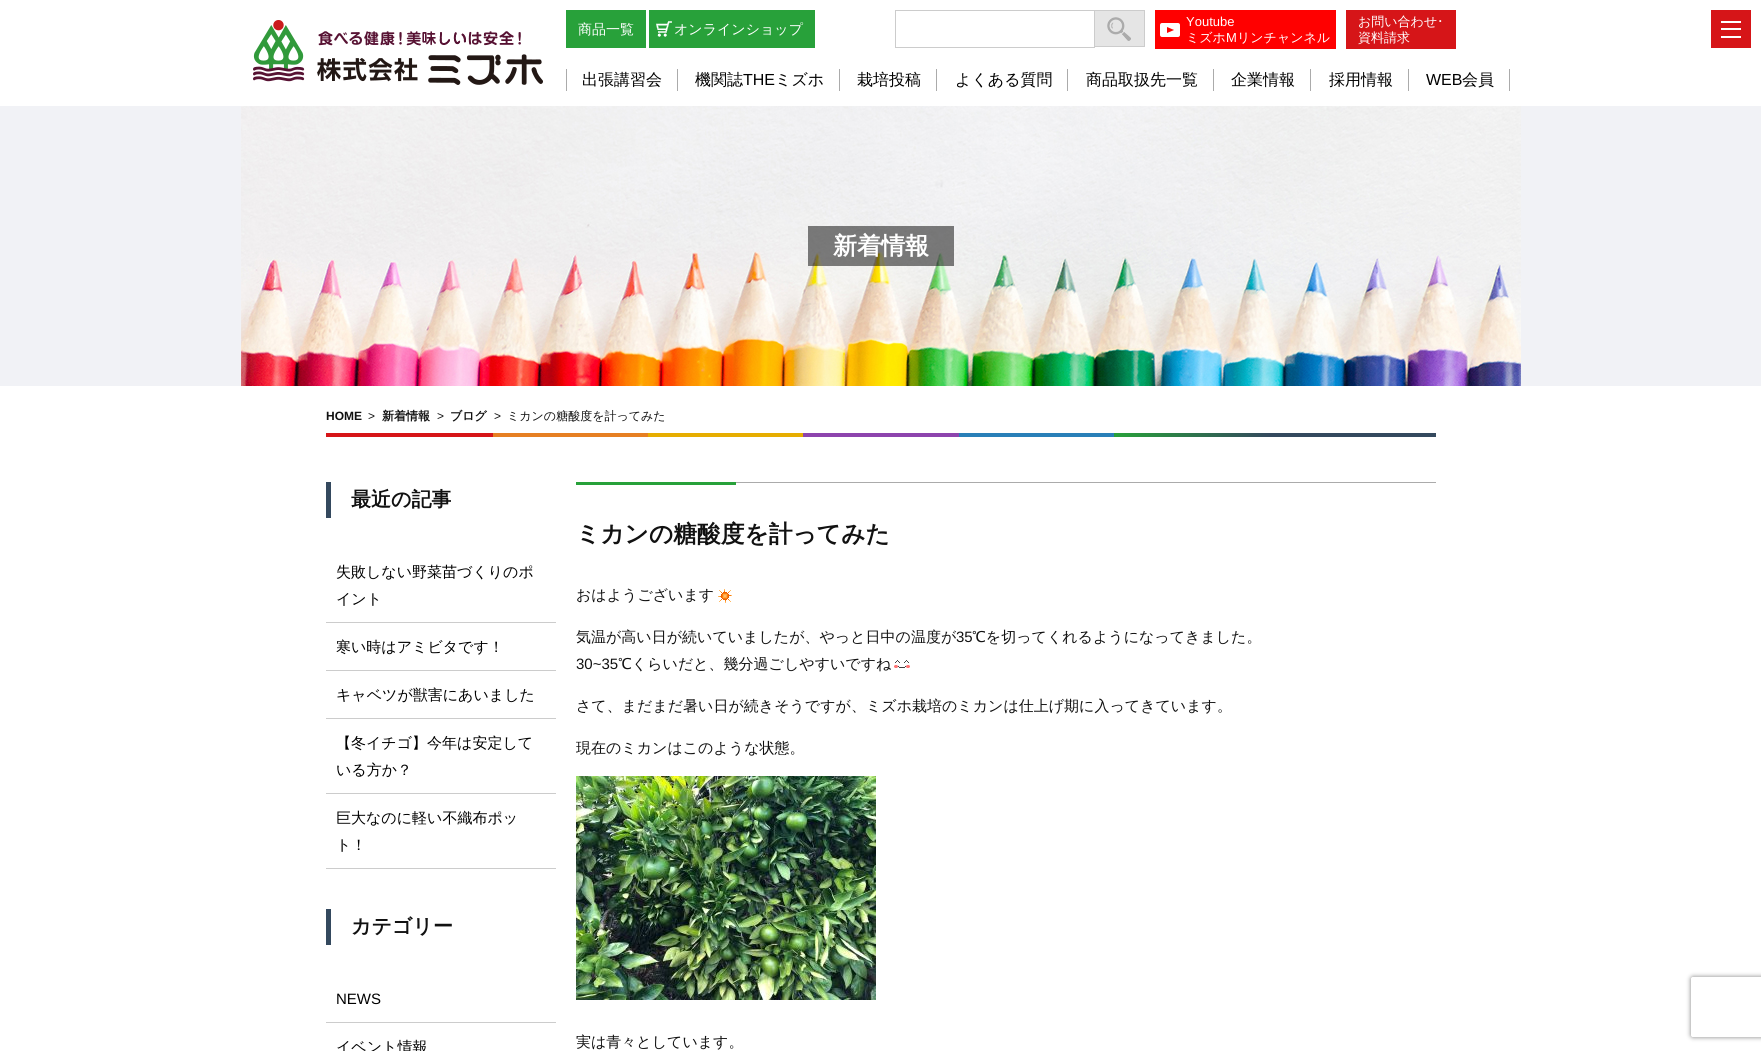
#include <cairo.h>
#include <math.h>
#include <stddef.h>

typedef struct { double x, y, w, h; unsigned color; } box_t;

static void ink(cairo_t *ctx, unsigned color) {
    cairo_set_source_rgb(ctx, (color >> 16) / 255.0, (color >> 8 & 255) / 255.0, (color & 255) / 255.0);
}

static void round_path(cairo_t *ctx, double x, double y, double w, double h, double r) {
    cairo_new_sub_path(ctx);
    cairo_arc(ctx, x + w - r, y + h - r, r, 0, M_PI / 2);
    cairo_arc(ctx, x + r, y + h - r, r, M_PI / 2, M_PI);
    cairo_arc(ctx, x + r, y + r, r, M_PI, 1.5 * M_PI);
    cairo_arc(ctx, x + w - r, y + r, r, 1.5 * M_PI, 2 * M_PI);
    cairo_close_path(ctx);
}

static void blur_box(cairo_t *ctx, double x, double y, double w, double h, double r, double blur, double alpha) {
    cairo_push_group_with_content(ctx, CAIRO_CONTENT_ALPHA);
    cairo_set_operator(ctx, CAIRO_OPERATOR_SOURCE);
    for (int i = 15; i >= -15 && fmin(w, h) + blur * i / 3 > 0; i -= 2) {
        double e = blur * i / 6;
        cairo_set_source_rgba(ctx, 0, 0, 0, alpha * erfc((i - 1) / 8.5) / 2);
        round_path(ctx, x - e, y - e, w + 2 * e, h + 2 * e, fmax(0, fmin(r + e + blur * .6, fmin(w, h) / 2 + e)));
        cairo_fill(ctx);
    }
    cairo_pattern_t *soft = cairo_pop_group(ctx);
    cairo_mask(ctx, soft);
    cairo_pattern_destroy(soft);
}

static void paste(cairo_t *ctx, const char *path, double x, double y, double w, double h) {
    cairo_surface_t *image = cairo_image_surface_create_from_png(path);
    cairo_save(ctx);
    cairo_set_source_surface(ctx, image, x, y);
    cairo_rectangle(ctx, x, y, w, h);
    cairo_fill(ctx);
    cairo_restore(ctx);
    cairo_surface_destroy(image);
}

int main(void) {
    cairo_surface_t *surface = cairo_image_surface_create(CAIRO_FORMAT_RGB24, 1761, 1051);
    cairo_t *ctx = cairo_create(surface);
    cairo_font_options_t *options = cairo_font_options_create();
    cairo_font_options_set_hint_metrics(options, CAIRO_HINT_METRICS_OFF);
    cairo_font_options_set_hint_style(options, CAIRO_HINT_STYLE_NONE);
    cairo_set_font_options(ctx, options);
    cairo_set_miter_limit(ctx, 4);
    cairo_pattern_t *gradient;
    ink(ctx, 0xFFFFFF);
    cairo_paint(ctx);
    paste(ctx, "media/1.png", 253, 20, 290, 65);
    ink(ctx, 0x28A13A);
    cairo_rectangle(ctx, 566, 10, 80, 38);
    cairo_fill(ctx);
    cairo_select_font_face(ctx, "WenQuanYi Zen Hei Medium", CAIRO_FONT_SLANT_NORMAL, CAIRO_FONT_WEIGHT_NORMAL);
    cairo_set_font_size(ctx, 14);
    ink(ctx, 0xFFFFFF);
    cairo_move_to(ctx, 578, 34);
    cairo_show_text(ctx, "商品一覧");
    ink(ctx, 0x28A13A);
    cairo_rectangle(ctx, 649, 10, 166, 38);
    cairo_fill(ctx);
    paste(ctx, "media/2.png", 656, 21, 16, 16);
    ink(ctx, 0xFFFFFF);
    cairo_move_to(ctx, 674, 34);
    cairo_show_text(ctx, "オンラインショップ");
    cairo_rectangle(ctx, 895.5, 10.5, 199, 37);
    ink(ctx, 0xCCCCCC);
    cairo_set_line_width(ctx, 1);
    cairo_stroke(ctx);
    ink(ctx, 0xE5E5E5);
    cairo_rectangle(ctx, 1095, 11, 49, 35);
    cairo_fill(ctx);
    paste(ctx, "media/3.png", 1107, 17, 24, 24);
    {
        static const box_t items[] = {
            {1095, 10, 50, 1, 0xCCCCCC},
            {1144, 10, 1, 37, 0xCCCCCC},
            {1095, 46, 50, 1, 0xCCCCCC},
            {1155, 10, 181, 39, 0xFF0000},
        };
        for (size_t i = 0; i < sizeof items / sizeof *items; i++) {
            ink(ctx, items[i].color);
            cairo_rectangle(ctx, items[i].x, items[i].y, items[i].w, items[i].h);
            cairo_fill(ctx);
        }
    }
    cairo_select_font_face(ctx, "Liberation Sans", CAIRO_FONT_SLANT_NORMAL, CAIRO_FONT_WEIGHT_NORMAL);
    cairo_set_font_size(ctx, 13);
    ink(ctx, 0xFFFFFF);
    cairo_move_to(ctx, 1186, 26);
    cairo_show_text(ctx, "Youtube");
    round_path(ctx, 1160, 23, 20, 14, 2);
    cairo_fill(ctx);
    ink(ctx, 0xFF0000);
    cairo_new_path(ctx);
    cairo_move_to(ctx, 1167, 33);
    cairo_line_to(ctx, 1167, 27);
    cairo_line_to(ctx, 1174, 30);
    cairo_close_path(ctx);
    cairo_fill(ctx);
    cairo_select_font_face(ctx, "WenQuanYi Zen Hei Medium", CAIRO_FONT_SLANT_NORMAL, CAIRO_FONT_WEIGHT_NORMAL);
    ink(ctx, 0xFFFFFF);
    cairo_move_to(ctx, 1186, 42);
    cairo_show_text(ctx, "ミズホ");
    cairo_select_font_face(ctx, "Liberation Sans", CAIRO_FONT_SLANT_NORMAL, CAIRO_FONT_WEIGHT_NORMAL);
    cairo_move_to(ctx, 1226, 42);
    cairo_show_text(ctx, "M");
    cairo_select_font_face(ctx, "WenQuanYi Zen Hei Medium", CAIRO_FONT_SLANT_NORMAL, CAIRO_FONT_WEIGHT_NORMAL);
    cairo_move_to(ctx, 1237, 42);
    cairo_show_text(ctx, "リンチャンネル");
    ink(ctx, 0xD61518);
    cairo_rectangle(ctx, 1346, 10, 110, 39);
    cairo_fill(ctx);
    ink(ctx, 0xFFFFFF);
    cairo_move_to(ctx, 1358, 26);
    cairo_show_text(ctx, "お問い合わせ");
    cairo_select_font_face(ctx, "IPAPGothic", CAIRO_FONT_SLANT_NORMAL, CAIRO_FONT_WEIGHT_NORMAL);
    cairo_move_to(ctx, 1437, 26);
    cairo_show_text(ctx, "･");
    cairo_select_font_face(ctx, "WenQuanYi Zen Hei Medium", CAIRO_FONT_SLANT_NORMAL, CAIRO_FONT_WEIGHT_NORMAL);
    cairo_move_to(ctx, 1358, 42);
    cairo_show_text(ctx, "資料請求");
    ink(ctx, 0xABABAB);
    cairo_rectangle(ctx, 677, 69, 1, 22);
    cairo_fill(ctx);
    cairo_rectangle(ctx, 566, 69, 1, 22);
    cairo_fill(ctx);
    cairo_set_font_size(ctx, 16);
    ink(ctx, 0x000000);
    cairo_move_to(ctx, 582, 85);
    cairo_show_text(ctx, "出張講習会");
    ink(ctx, 0xABABAB);
    cairo_rectangle(ctx, 839, 69, 1, 22);
    cairo_fill(ctx);
    ink(ctx, 0x000000);
    cairo_move_to(ctx, 695, 85);
    cairo_show_text(ctx, "機関誌");
    cairo_select_font_face(ctx, "Liberation Sans", CAIRO_FONT_SLANT_NORMAL, CAIRO_FONT_WEIGHT_NORMAL);
    cairo_move_to(ctx, 743, 85);
    cairo_show_text(ctx, "THE");
    cairo_select_font_face(ctx, "WenQuanYi Zen Hei Medium", CAIRO_FONT_SLANT_NORMAL, CAIRO_FONT_WEIGHT_NORMAL);
    cairo_move_to(ctx, 775, 85);
    cairo_show_text(ctx, "ミズホ");
    ink(ctx, 0xABABAB);
    cairo_rectangle(ctx, 936, 69, 1, 22);
    cairo_fill(ctx);
    ink(ctx, 0x000000);
    cairo_move_to(ctx, 857, 85);
    cairo_show_text(ctx, "栽培投稿");
    ink(ctx, 0xABABAB);
    cairo_rectangle(ctx, 1067, 69, 1, 22);
    cairo_fill(ctx);
    ink(ctx, 0x000000);
    cairo_move_to(ctx, 955, 85);
    cairo_show_text(ctx, "よくある質問");
    ink(ctx, 0xABABAB);
    cairo_rectangle(ctx, 1213, 69, 1, 22);
    cairo_fill(ctx);
    ink(ctx, 0x000000);
    cairo_move_to(ctx, 1086, 85);
    cairo_show_text(ctx, "商品取扱先一覧");
    ink(ctx, 0xABABAB);
    cairo_rectangle(ctx, 1310, 69, 1, 22);
    cairo_fill(ctx);
    ink(ctx, 0x000000);
    cairo_move_to(ctx, 1231, 85);
    cairo_show_text(ctx, "企業情報");
    ink(ctx, 0xABABAB);
    cairo_rectangle(ctx, 1408, 69, 1, 22);
    cairo_fill(ctx);
    ink(ctx, 0x000000);
    cairo_move_to(ctx, 1329, 85);
    cairo_show_text(ctx, "採用情報");
    ink(ctx, 0xABABAB);
    cairo_rectangle(ctx, 1509, 69, 1, 22);
    cairo_fill(ctx);
    cairo_select_font_face(ctx, "Liberation Sans", CAIRO_FONT_SLANT_NORMAL, CAIRO_FONT_WEIGHT_NORMAL);
    ink(ctx, 0x000000);
    cairo_move_to(ctx, 1426, 85);
    cairo_show_text(ctx, "WEB");
    cairo_select_font_face(ctx, "WenQuanYi Zen Hei Medium", CAIRO_FONT_SLANT_NORMAL, CAIRO_FONT_WEIGHT_NORMAL);
    cairo_move_to(ctx, 1462, 85);
    cairo_show_text(ctx, "会員");
    {
        static const box_t items[] = {
            {1711, 10, 40, 38, 0xD61518},
            {1721, 21, 20, 2, 0xFFFFFF},
            {1721, 28, 20, 2, 0xFFFFFF},
            {1721, 36, 20, 2, 0xFFFFFF},
            {0, 106, 1761, 280, 0xF1F2F6},
        };
        for (size_t i = 0; i < sizeof items / sizeof *items; i++) {
            ink(ctx, items[i].color);
            cairo_rectangle(ctx, items[i].x, items[i].y, items[i].w, items[i].h);
            cairo_fill(ctx);
        }
    }
    paste(ctx, "media/4.png", 241, 106, 1280, 280);
    cairo_set_source_rgba(ctx, 0, 0, 0, 0.5);
    cairo_rectangle(ctx, 808, 226, 146, 40);
    cairo_fill(ctx);
    cairo_select_font_face(ctx, "WenQuanYi Zen Hei", CAIRO_FONT_SLANT_NORMAL, CAIRO_FONT_WEIGHT_BOLD);
    cairo_set_font_size(ctx, 24);
    ink(ctx, 0xFFFFFF);
    cairo_move_to(ctx, 833, 254);
    cairo_show_text(ctx, "新着情報");
    cairo_select_font_face(ctx, "Liberation Sans", CAIRO_FONT_SLANT_NORMAL, CAIRO_FONT_WEIGHT_BOLD);
    cairo_set_font_size(ctx, 12);
    ink(ctx, 0x111111);
    cairo_move_to(ctx, 326, 420);
    cairo_show_text(ctx, "HOME");
    cairo_select_font_face(ctx, "Liberation Sans", CAIRO_FONT_SLANT_NORMAL, CAIRO_FONT_WEIGHT_NORMAL);
    cairo_move_to(ctx, 368, 420);
    cairo_show_text(ctx, ">");
    cairo_select_font_face(ctx, "WenQuanYi Zen Hei", CAIRO_FONT_SLANT_NORMAL, CAIRO_FONT_WEIGHT_BOLD);
    cairo_move_to(ctx, 382, 420);
    cairo_show_text(ctx, "新着情報");
    cairo_select_font_face(ctx, "Liberation Sans", CAIRO_FONT_SLANT_NORMAL, CAIRO_FONT_WEIGHT_NORMAL);
    cairo_move_to(ctx, 437, 420);
    cairo_show_text(ctx, ">");
    cairo_select_font_face(ctx, "WenQuanYi Zen Hei", CAIRO_FONT_SLANT_NORMAL, CAIRO_FONT_WEIGHT_BOLD);
    cairo_move_to(ctx, 450, 420);
    cairo_show_text(ctx, "ブログ");
    cairo_select_font_face(ctx, "Liberation Sans", CAIRO_FONT_SLANT_NORMAL, CAIRO_FONT_WEIGHT_NORMAL);
    cairo_move_to(ctx, 494, 420);
    cairo_show_text(ctx, ">");
    cairo_select_font_face(ctx, "WenQuanYi Zen Hei Medium", CAIRO_FONT_SLANT_NORMAL, CAIRO_FONT_WEIGHT_NORMAL);
    cairo_move_to(ctx, 507, 420);
    cairo_show_text(ctx, "ミカンの糖酸度を計ってみた");
    gradient = cairo_pattern_create_linear(326, 435, 1436, 435);
    cairo_pattern_add_color_stop_rgba(gradient, 0, 0.839, 0.082, 0.094, 1);
    cairo_pattern_add_color_stop_rgba(gradient, 0.15, 0.839, 0.082, 0.094, 1);
    cairo_pattern_add_color_stop_rgba(gradient, 0.15, 0.902, 0.498, 0.133, 1);
    cairo_pattern_add_color_stop_rgba(gradient, 0.29, 0.902, 0.498, 0.133, 1);
    cairo_pattern_add_color_stop_rgba(gradient, 0.29, 0.902, 0.678, 0, 1);
    cairo_pattern_add_color_stop_rgba(gradient, 0.43, 0.902, 0.678, 0, 1);
    cairo_pattern_add_color_stop_rgba(gradient, 0.43, 0.553, 0.267, 0.678, 1);
    cairo_pattern_add_color_stop_rgba(gradient, 0.57, 0.553, 0.267, 0.678, 1);
    cairo_pattern_add_color_stop_rgba(gradient, 0.57, 0.161, 0.498, 0.722, 1);
    cairo_pattern_add_color_stop_rgba(gradient, 0.71, 0.161, 0.498, 0.722, 1);
    cairo_pattern_add_color_stop_rgba(gradient, 0.71, 0.157, 0.631, 0.227, 1);
    cairo_pattern_add_color_stop_rgba(gradient, 0.85, 0.204, 0.286, 0.369, 1);
    cairo_pattern_add_color_stop_rgba(gradient, 1, 0.204, 0.286, 0.369, 1);
    cairo_set_source(ctx, gradient);
    cairo_pattern_destroy(gradient);
    cairo_rectangle(ctx, 326, 433, 1110, 4);
    cairo_fill(ctx);
    ink(ctx, 0x34495E);
    cairo_rectangle(ctx, 326, 482, 5, 36);
    cairo_fill(ctx);
    cairo_select_font_face(ctx, "WenQuanYi Zen Hei", CAIRO_FONT_SLANT_NORMAL, CAIRO_FONT_WEIGHT_BOLD);
    cairo_set_font_size(ctx, 20);
    ink(ctx, 0x111111);
    cairo_move_to(ctx, 351, 506);
    cairo_show_text(ctx, "最近の記事");
    ink(ctx, 0xCCCCCC);
    cairo_rectangle(ctx, 326, 622, 230, 1);
    cairo_fill(ctx);
    cairo_select_font_face(ctx, "WenQuanYi Zen Hei Medium", CAIRO_FONT_SLANT_NORMAL, CAIRO_FONT_WEIGHT_NORMAL);
    cairo_set_font_size(ctx, 15);
    ink(ctx, 0x000000);
    cairo_move_to(ctx, 336, 577);
    cairo_show_text(ctx, "失敗しない野菜苗づくりのポ");
    cairo_move_to(ctx, 336, 604);
    cairo_show_text(ctx, "イント");
    ink(ctx, 0xCCCCCC);
    cairo_rectangle(ctx, 326, 670, 230, 1);
    cairo_fill(ctx);
    ink(ctx, 0x000000);
    cairo_move_to(ctx, 336, 652);
    cairo_show_text(ctx, "寒い時はアミビタです！");
    ink(ctx, 0xCCCCCC);
    cairo_rectangle(ctx, 326, 718, 230, 1);
    cairo_fill(ctx);
    ink(ctx, 0x000000);
    cairo_move_to(ctx, 336, 700);
    cairo_show_text(ctx, "キャベツが獣害にあいました");
    ink(ctx, 0xCCCCCC);
    cairo_rectangle(ctx, 326, 793, 230, 1);
    cairo_fill(ctx);
    ink(ctx, 0x000000);
    cairo_move_to(ctx, 336, 748);
    cairo_show_text(ctx, "【冬イチゴ】今年は安定して");
    cairo_move_to(ctx, 336, 775);
    cairo_show_text(ctx, "いる方か？");
    ink(ctx, 0xCCCCCC);
    cairo_rectangle(ctx, 326, 868, 230, 1);
    cairo_fill(ctx);
    ink(ctx, 0x000000);
    cairo_move_to(ctx, 336, 823);
    cairo_show_text(ctx, "巨大なのに軽い不織布ポッ");
    cairo_move_to(ctx, 336, 850);
    cairo_show_text(ctx, "ト！");
    ink(ctx, 0x34495E);
    cairo_rectangle(ctx, 326, 909, 5, 36);
    cairo_fill(ctx);
    cairo_select_font_face(ctx, "WenQuanYi Zen Hei", CAIRO_FONT_SLANT_NORMAL, CAIRO_FONT_WEIGHT_BOLD);
    cairo_set_font_size(ctx, 20);
    ink(ctx, 0x111111);
    cairo_move_to(ctx, 351, 933);
    cairo_show_text(ctx, "カテゴリー");
    ink(ctx, 0xCCCCCC);
    cairo_rectangle(ctx, 326, 1022, 230, 1);
    cairo_fill(ctx);
    cairo_select_font_face(ctx, "Liberation Sans", CAIRO_FONT_SLANT_NORMAL, CAIRO_FONT_WEIGHT_NORMAL);
    cairo_set_font_size(ctx, 15);
    ink(ctx, 0x000000);
    cairo_move_to(ctx, 336, 1004);
    cairo_show_text(ctx, "NEWS");
    cairo_select_font_face(ctx, "WenQuanYi Zen Hei Medium", CAIRO_FONT_SLANT_NORMAL, CAIRO_FONT_WEIGHT_NORMAL);
    cairo_move_to(ctx, 336, 1052);
    cairo_show_text(ctx, "イベント情報");
    ink(ctx, 0xABABAB);
    cairo_rectangle(ctx, 736, 482, 700, 1);
    cairo_fill(ctx);
    ink(ctx, 0x28A13A);
    cairo_rectangle(ctx, 576, 482, 160, 3);
    cairo_fill(ctx);
    cairo_select_font_face(ctx, "WenQuanYi Zen Hei", CAIRO_FONT_SLANT_NORMAL, CAIRO_FONT_WEIGHT_BOLD);
    cairo_set_font_size(ctx, 23.75);
    ink(ctx, 0x111111);
    cairo_move_to(ctx, 576, 542);
    cairo_show_text(ctx, "ミカンの糖酸度を計ってみた");
    cairo_select_font_face(ctx, "WenQuanYi Zen Hei Medium", CAIRO_FONT_SLANT_NORMAL, CAIRO_FONT_WEIGHT_NORMAL);
    cairo_set_font_size(ctx, 15);
    cairo_move_to(ctx, 576, 600);
    cairo_show_text(ctx, "おはようございます");
    paste(ctx, "media/5.png", 718, 589, 14, 14);
    cairo_move_to(ctx, 576, 642);
    cairo_show_text(ctx, "気温が高い日が続いていましたが、やっと日中の温度が");
    cairo_select_font_face(ctx, "Liberation Sans", CAIRO_FONT_SLANT_NORMAL, CAIRO_FONT_WEIGHT_NORMAL);
    cairo_move_to(ctx, 956, 642);
    cairo_show_text(ctx, "35");
    cairo_select_font_face(ctx, "WenQuanYi Zen Hei Medium", CAIRO_FONT_SLANT_NORMAL, CAIRO_FONT_WEIGHT_NORMAL);
    cairo_move_to(ctx, 972, 642);
    cairo_show_text(ctx, "℃を切ってくれるようになってきました。");
    cairo_select_font_face(ctx, "Liberation Sans", CAIRO_FONT_SLANT_NORMAL, CAIRO_FONT_WEIGHT_NORMAL);
    cairo_move_to(ctx, 576, 669);
    cairo_show_text(ctx, "30~35");
    cairo_select_font_face(ctx, "WenQuanYi Zen Hei Medium", CAIRO_FONT_SLANT_NORMAL, CAIRO_FONT_WEIGHT_NORMAL);
    cairo_move_to(ctx, 618, 669);
    cairo_show_text(ctx, "℃くらいだと、幾分過ごしやすいですね");
    paste(ctx, "media/6.png", 894, 660, 16, 8);
    cairo_move_to(ctx, 576, 711);
    cairo_show_text(ctx, "さて、まだまだ暑い日が続きそうですが、ミズホ栽培のミカンは仕上げ期に入ってきています。");
    cairo_save(ctx);
    cairo_rectangle(ctx, 576, 581, 860, 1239);
    cairo_clip(ctx);
    cairo_move_to(ctx, 576, 753);
    cairo_show_text(ctx, "現在のミカンはこのような状態。");
    cairo_restore(ctx);
    paste(ctx, "media/7.png", 576, 776, 300, 224);
    cairo_move_to(ctx, 576, 1047);
    cairo_show_text(ctx, "実は青々としています。");
    cairo_save(ctx);
    cairo_set_fill_rule(ctx, CAIRO_FILL_RULE_EVEN_ODD);
    cairo_new_path(ctx);
    cairo_move_to(ctx, 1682, 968);
    cairo_line_to(ctx, 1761, 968);
    cairo_line_to(ctx, 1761, 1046);
    cairo_line_to(ctx, 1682, 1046);
    cairo_close_path(ctx);
    cairo_move_to(ctx, 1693, 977);
    cairo_line_to(ctx, 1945, 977);
    cairo_curve_to(ctx, 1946, 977, 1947, 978, 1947, 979);
    cairo_line_to(ctx, 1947, 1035);
    cairo_curve_to(ctx, 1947, 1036, 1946, 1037, 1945, 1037);
    cairo_line_to(ctx, 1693, 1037);
    cairo_curve_to(ctx, 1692, 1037, 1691, 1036, 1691, 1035);
    cairo_line_to(ctx, 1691, 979);
    cairo_curve_to(ctx, 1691, 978, 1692, 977, 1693, 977);
    cairo_close_path(ctx);
    cairo_clip(ctx);
    ink(ctx, 0x808080);
    blur_box(ctx, 1691, 977, 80, 60, 2, 2.5, 1);
    cairo_restore(ctx);
    cairo_surface_write_to_png(surface, "image.png");
    cairo_font_options_destroy(options);
    cairo_destroy(ctx);
    cairo_surface_destroy(surface);
    return 0;
}
